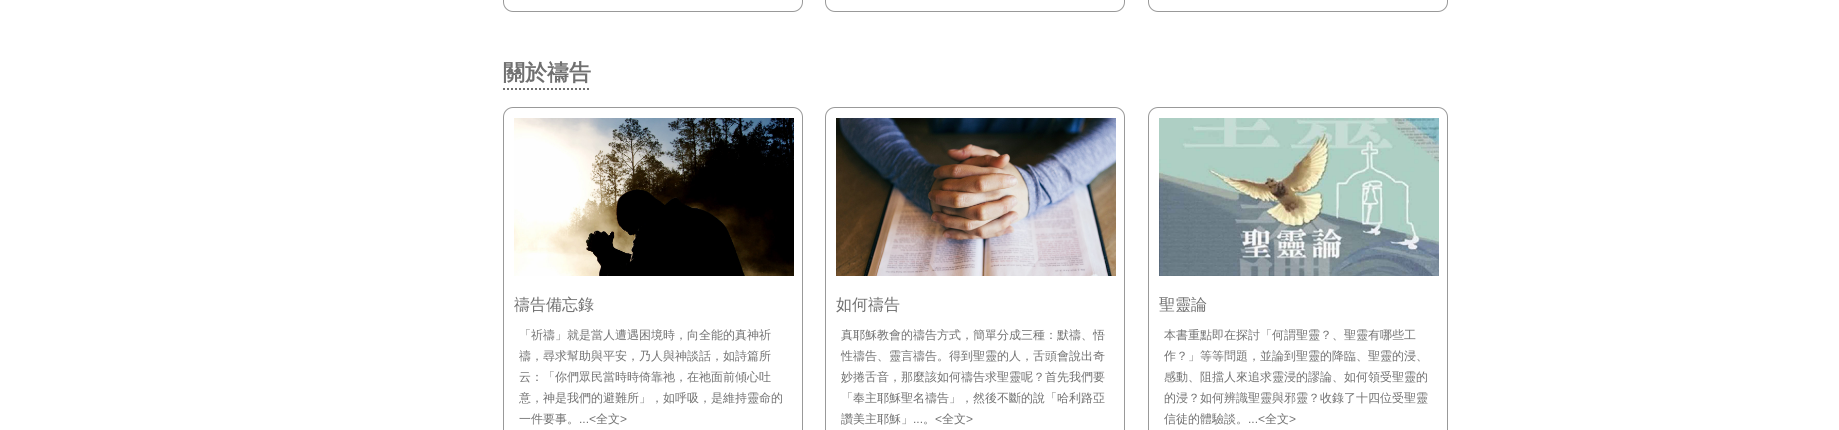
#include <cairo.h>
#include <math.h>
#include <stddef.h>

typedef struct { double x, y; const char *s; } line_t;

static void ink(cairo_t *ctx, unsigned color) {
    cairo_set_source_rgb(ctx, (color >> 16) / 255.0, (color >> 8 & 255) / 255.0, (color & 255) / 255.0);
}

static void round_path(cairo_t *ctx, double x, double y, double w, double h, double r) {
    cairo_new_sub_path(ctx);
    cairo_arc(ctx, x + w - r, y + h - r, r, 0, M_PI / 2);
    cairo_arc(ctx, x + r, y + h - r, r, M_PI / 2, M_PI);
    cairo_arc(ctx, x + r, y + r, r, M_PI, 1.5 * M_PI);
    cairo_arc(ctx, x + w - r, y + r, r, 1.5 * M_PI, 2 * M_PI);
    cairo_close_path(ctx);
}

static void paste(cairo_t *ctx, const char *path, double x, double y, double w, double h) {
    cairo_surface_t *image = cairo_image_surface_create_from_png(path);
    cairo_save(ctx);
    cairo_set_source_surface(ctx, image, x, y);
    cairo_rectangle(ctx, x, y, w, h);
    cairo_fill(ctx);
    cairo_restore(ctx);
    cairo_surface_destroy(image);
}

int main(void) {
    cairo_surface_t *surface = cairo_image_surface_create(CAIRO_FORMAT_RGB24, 1839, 430);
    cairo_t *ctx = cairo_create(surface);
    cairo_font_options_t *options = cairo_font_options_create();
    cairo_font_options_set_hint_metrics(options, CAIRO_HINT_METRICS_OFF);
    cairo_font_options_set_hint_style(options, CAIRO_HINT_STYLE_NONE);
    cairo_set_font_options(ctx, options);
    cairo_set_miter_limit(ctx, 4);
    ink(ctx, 0xFFFFFF);
    cairo_paint(ctx);
    round_path(ctx, 503.5, -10.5, 299, 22, 9.5);
    ink(ctx, 0x999999);
    cairo_set_line_width(ctx, 1);
    cairo_stroke(ctx);
    round_path(ctx, 825.5, -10.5, 299, 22, 9.5);
    cairo_stroke(ctx);
    round_path(ctx, 1148.5, -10.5, 299, 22, 9.5);
    cairo_stroke(ctx);
    cairo_new_path(ctx);
    cairo_move_to(ctx, 503, 89);
    cairo_line_to(ctx, 591, 89);
    ink(ctx, 0x707070);
    cairo_set_line_width(ctx, 2);
    cairo_set_dash(ctx, (double[]){2, 2}, 2, 0);
    cairo_stroke(ctx);
    cairo_select_font_face(ctx, "WenQuanYi Zen Hei", CAIRO_FONT_SLANT_NORMAL, CAIRO_FONT_WEIGHT_BOLD);
    cairo_set_font_size(ctx, 22);
    cairo_move_to(ctx, 503, 80);
    cairo_show_text(ctx, "關於禱告");
    round_path(ctx, 503.5, 107.5, 299, 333, 9.5);
    ink(ctx, 0x999999);
    cairo_set_line_width(ctx, 1);
    cairo_set_dash(ctx, NULL, 0, 0);
    cairo_stroke(ctx);
    paste(ctx, "media/1.png", 514, 118, 280, 158);
    cairo_select_font_face(ctx, "WenQuanYi Zen Hei Medium", CAIRO_FONT_SLANT_NORMAL, CAIRO_FONT_WEIGHT_NORMAL);
    cairo_set_font_size(ctx, 16);
    ink(ctx, 0x707070);
    cairo_move_to(ctx, 514, 310);
    cairo_show_text(ctx, "禱告備忘錄");
    cairo_set_font_size(ctx, 12);
    {
        static const line_t items[] = {
            {519, 339, "「祈禱」就是當人遭遇困境時，向全能的真神祈"},
            {519, 360, "禱，尋求幫助與平安，乃人與神談話，如詩篇所"},
            {519, 381, "云：「你們眾民當時時倚靠祂，在祂面前傾心吐"},
            {519, 402, "意，神是我們的避難所」，如呼吸，是維持靈命的"},
            {519, 423, "一件要事。"},
        };
        for (size_t i = 0; i < sizeof items / sizeof *items; i++) {
            cairo_move_to(ctx, items[i].x, items[i].y);
            cairo_show_text(ctx, items[i].s);
        }
    }
    cairo_select_font_face(ctx, "Liberation Sans", CAIRO_FONT_SLANT_NORMAL, CAIRO_FONT_WEIGHT_NORMAL);
    cairo_move_to(ctx, 579, 423);
    cairo_show_text(ctx, "...<");
    cairo_select_font_face(ctx, "WenQuanYi Zen Hei Medium", CAIRO_FONT_SLANT_NORMAL, CAIRO_FONT_WEIGHT_NORMAL);
    cairo_move_to(ctx, 596, 423);
    cairo_show_text(ctx, "全文");
    cairo_select_font_face(ctx, "Liberation Sans", CAIRO_FONT_SLANT_NORMAL, CAIRO_FONT_WEIGHT_NORMAL);
    cairo_move_to(ctx, 620, 423);
    cairo_show_text(ctx, ">");
    round_path(ctx, 825.5, 107.5, 299, 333, 9.5);
    ink(ctx, 0x999999);
    cairo_stroke(ctx);
    paste(ctx, "media/2.png", 836, 118, 280, 158);
    cairo_select_font_face(ctx, "WenQuanYi Zen Hei Medium", CAIRO_FONT_SLANT_NORMAL, CAIRO_FONT_WEIGHT_NORMAL);
    cairo_set_font_size(ctx, 16);
    ink(ctx, 0x707070);
    cairo_move_to(ctx, 836, 310);
    cairo_show_text(ctx, "如何禱告");
    cairo_set_font_size(ctx, 12);
    {
        static const line_t items[] = {
            {841, 339, "真耶穌教會的禱告方式，簡單分成三種：默禱、悟"},
            {841, 360, "性禱告、靈言禱告。得到聖靈的人，舌頭會說出奇"},
            {841, 381, "妙捲舌音，那麼該如何禱告求聖靈呢？首先我們要"},
            {841, 402, "「奉主耶穌聖名禱告」，然後不斷的說「哈利路亞"},
            {841, 423, "讚美主耶穌」"},
        };
        for (size_t i = 0; i < sizeof items / sizeof *items; i++) {
            cairo_move_to(ctx, items[i].x, items[i].y);
            cairo_show_text(ctx, items[i].s);
        }
    }
    cairo_select_font_face(ctx, "Liberation Sans", CAIRO_FONT_SLANT_NORMAL, CAIRO_FONT_WEIGHT_NORMAL);
    cairo_move_to(ctx, 913, 423);
    cairo_show_text(ctx, "...");
    cairo_select_font_face(ctx, "WenQuanYi Zen Hei Medium", CAIRO_FONT_SLANT_NORMAL, CAIRO_FONT_WEIGHT_NORMAL);
    cairo_move_to(ctx, 923, 423);
    cairo_show_text(ctx, "。");
    cairo_select_font_face(ctx, "Liberation Sans", CAIRO_FONT_SLANT_NORMAL, CAIRO_FONT_WEIGHT_NORMAL);
    cairo_move_to(ctx, 935, 423);
    cairo_show_text(ctx, "<");
    cairo_select_font_face(ctx, "WenQuanYi Zen Hei Medium", CAIRO_FONT_SLANT_NORMAL, CAIRO_FONT_WEIGHT_NORMAL);
    cairo_move_to(ctx, 942, 423);
    cairo_show_text(ctx, "全文");
    cairo_select_font_face(ctx, "Liberation Sans", CAIRO_FONT_SLANT_NORMAL, CAIRO_FONT_WEIGHT_NORMAL);
    cairo_move_to(ctx, 966, 423);
    cairo_show_text(ctx, ">");
    round_path(ctx, 1148.5, 107.5, 299, 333, 9.5);
    ink(ctx, 0x999999);
    cairo_stroke(ctx);
    paste(ctx, "media/3.png", 1159, 118, 280, 158);
    cairo_select_font_face(ctx, "WenQuanYi Zen Hei Medium", CAIRO_FONT_SLANT_NORMAL, CAIRO_FONT_WEIGHT_NORMAL);
    cairo_set_font_size(ctx, 16);
    ink(ctx, 0x707070);
    cairo_move_to(ctx, 1159, 310);
    cairo_show_text(ctx, "聖靈論");
    cairo_set_font_size(ctx, 12);
    {
        static const line_t items[] = {
            {1164, 339, "本書重點即在探討「何謂聖靈？、聖靈有哪些工"},
            {1164, 360, "作？」等等問題，並論到聖靈的降臨、聖靈的浸、"},
            {1164, 381, "感動、阻擋人來追求靈浸的謬論、如何領受聖靈的"},
            {1164, 402, "的浸？如何辨識聖靈與邪靈？收錄了十四位受聖靈"},
            {1164, 423, "信徒的體驗談。"},
        };
        for (size_t i = 0; i < sizeof items / sizeof *items; i++) {
            cairo_move_to(ctx, items[i].x, items[i].y);
            cairo_show_text(ctx, items[i].s);
        }
    }
    cairo_select_font_face(ctx, "Liberation Sans", CAIRO_FONT_SLANT_NORMAL, CAIRO_FONT_WEIGHT_NORMAL);
    cairo_move_to(ctx, 1248, 423);
    cairo_show_text(ctx, "...<");
    cairo_select_font_face(ctx, "WenQuanYi Zen Hei Medium", CAIRO_FONT_SLANT_NORMAL, CAIRO_FONT_WEIGHT_NORMAL);
    cairo_move_to(ctx, 1265, 423);
    cairo_show_text(ctx, "全文");
    cairo_select_font_face(ctx, "Liberation Sans", CAIRO_FONT_SLANT_NORMAL, CAIRO_FONT_WEIGHT_NORMAL);
    cairo_move_to(ctx, 1289, 423);
    cairo_show_text(ctx, ">");
    cairo_surface_write_to_png(surface, "image.png");
    cairo_font_options_destroy(options);
    cairo_destroy(ctx);
    cairo_surface_destroy(surface);
    return 0;
}
